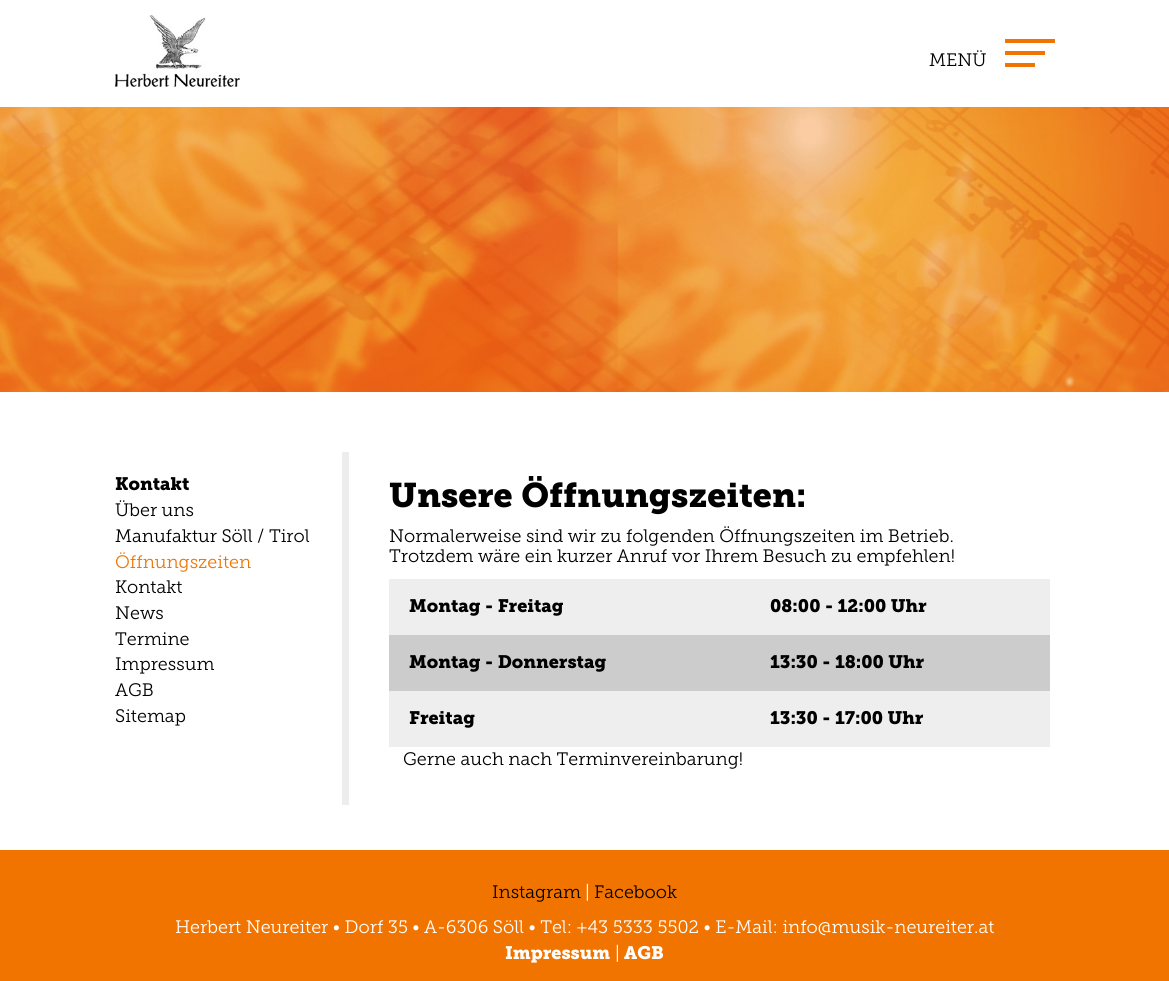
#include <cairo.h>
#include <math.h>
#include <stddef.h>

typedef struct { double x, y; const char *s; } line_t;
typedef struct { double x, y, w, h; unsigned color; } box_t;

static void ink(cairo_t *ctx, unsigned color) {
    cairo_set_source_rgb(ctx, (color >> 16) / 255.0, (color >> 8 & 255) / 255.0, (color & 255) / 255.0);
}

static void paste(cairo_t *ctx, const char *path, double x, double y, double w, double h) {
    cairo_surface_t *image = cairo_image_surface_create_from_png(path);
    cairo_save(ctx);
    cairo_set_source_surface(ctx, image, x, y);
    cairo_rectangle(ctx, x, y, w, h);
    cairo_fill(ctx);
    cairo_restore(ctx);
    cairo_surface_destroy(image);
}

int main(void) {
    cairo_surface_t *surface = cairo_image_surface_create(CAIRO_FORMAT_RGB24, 1169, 981);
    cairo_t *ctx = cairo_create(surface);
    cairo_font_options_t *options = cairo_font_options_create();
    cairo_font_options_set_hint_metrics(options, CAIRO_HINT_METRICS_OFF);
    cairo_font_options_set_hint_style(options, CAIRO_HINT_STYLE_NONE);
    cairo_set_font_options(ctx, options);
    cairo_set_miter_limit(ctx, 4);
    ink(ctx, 0xFFFFFF);
    cairo_paint(ctx);
    paste(ctx, "media/1.png", 115, 15, 125, 72);
    cairo_select_font_face(ctx, "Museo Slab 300 Light", CAIRO_FONT_SLANT_NORMAL, CAIRO_FONT_WEIGHT_NORMAL);
    cairo_set_font_size(ctx, 18);
    ink(ctx, 0x000000);
    cairo_move_to(ctx, 929, 66);
    cairo_show_text(ctx, "MENÜ");
    {
        static const box_t items[] = {
            {1005, 39, 50, 4, 0xF27400},
            {1005, 51, 40, 4, 0xF27400},
            {1005, 63, 30, 4, 0xF27400},
        };
        for (size_t i = 0; i < sizeof items / sizeof *items; i++) {
            ink(ctx, items[i].color);
            cairo_rectangle(ctx, items[i].x, items[i].y, items[i].w, items[i].h);
            cairo_fill(ctx);
        }
    }
    paste(ctx, "media/2.png", 0, 107, 1169, 285);
    cairo_select_font_face(ctx, "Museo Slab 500", CAIRO_FONT_SLANT_NORMAL, CAIRO_FONT_WEIGHT_BOLD);
    ink(ctx, 0x000000);
    cairo_move_to(ctx, 115, 490);
    cairo_show_text(ctx, "Kontakt");
    cairo_select_font_face(ctx, "Museo Slab 300 Light", CAIRO_FONT_SLANT_NORMAL, CAIRO_FONT_WEIGHT_NORMAL);
    cairo_move_to(ctx, 115, 516);
    cairo_show_text(ctx, "Über uns");
    cairo_move_to(ctx, 115, 542);
    cairo_show_text(ctx, "Manufaktur Söll / Tirol");
    ink(ctx, 0xF27400);
    cairo_move_to(ctx, 115, 568);
    cairo_show_text(ctx, "Öffnungszeiten");
    ink(ctx, 0x000000);
    {
        static const line_t items[] = {
            {115, 593, "Kontakt"},
            {115, 619, "News"},
            {115, 645, "Termine"},
            {115, 670, "Impressum"},
            {115, 696, "AGB"},
            {115, 722, "Sitemap"},
        };
        for (size_t i = 0; i < sizeof items / sizeof *items; i++) {
            cairo_move_to(ctx, items[i].x, items[i].y);
            cairo_show_text(ctx, items[i].s);
        }
    }
    ink(ctx, 0xEDEDED);
    cairo_rectangle(ctx, 342, 452, 7, 353);
    cairo_fill(ctx);
    cairo_select_font_face(ctx, "Museo Slab 500", CAIRO_FONT_SLANT_NORMAL, CAIRO_FONT_WEIGHT_BOLD);
    cairo_set_font_size(ctx, 34);
    ink(ctx, 0x000000);
    cairo_move_to(ctx, 389, 507);
    cairo_show_text(ctx, "Unsere Öffnungszeiten:");
    cairo_select_font_face(ctx, "Museo Slab 300 Light", CAIRO_FONT_SLANT_NORMAL, CAIRO_FONT_WEIGHT_NORMAL);
    cairo_set_font_size(ctx, 18);
    cairo_move_to(ctx, 389, 542);
    cairo_show_text(ctx, "Normalerweise sind wir zu folgenden Öffnungszeiten im Betrieb.");
    cairo_move_to(ctx, 389, 562);
    cairo_show_text(ctx, "Trotzdem wäre ein kurzer Anruf vor Ihrem Besuch zu empfehlen!");
    ink(ctx, 0xEEEEEE);
    cairo_rectangle(ctx, 389, 579, 661, 56);
    cairo_fill(ctx);
    cairo_select_font_face(ctx, "Museo Slab 500", CAIRO_FONT_SLANT_NORMAL, CAIRO_FONT_WEIGHT_BOLD);
    ink(ctx, 0x000000);
    cairo_move_to(ctx, 409, 612);
    cairo_show_text(ctx, "Montag - Freitag");
    cairo_move_to(ctx, 770, 612);
    cairo_show_text(ctx, "08:00 - 12:00 Uhr");
    ink(ctx, 0xCCCCCC);
    cairo_rectangle(ctx, 389, 635, 661, 56);
    cairo_fill(ctx);
    ink(ctx, 0x000000);
    cairo_move_to(ctx, 409, 668);
    cairo_show_text(ctx, "Montag - Donnerstag");
    cairo_move_to(ctx, 770, 668);
    cairo_show_text(ctx, "13:30 - 18:00 Uhr");
    ink(ctx, 0xEEEEEE);
    cairo_rectangle(ctx, 389, 691, 661, 56);
    cairo_fill(ctx);
    ink(ctx, 0x000000);
    cairo_move_to(ctx, 409, 724);
    cairo_show_text(ctx, "Freitag");
    cairo_move_to(ctx, 770, 724);
    cairo_show_text(ctx, "13:30 - 17:00 Uhr");
    cairo_select_font_face(ctx, "Museo Slab 300 Light", CAIRO_FONT_SLANT_NORMAL, CAIRO_FONT_WEIGHT_NORMAL);
    cairo_move_to(ctx, 403, 765);
    cairo_show_text(ctx, "Gerne auch nach Terminvereinbarung!");
    ink(ctx, 0xF27400);
    cairo_rectangle(ctx, 0, 850, 1169, 131);
    cairo_fill(ctx);
    ink(ctx, 0x000000);
    cairo_move_to(ctx, 492, 898);
    cairo_show_text(ctx, "Instagram");
    ink(ctx, 0xFFFFFF);
    cairo_move_to(ctx, 585, 898);
    cairo_show_text(ctx, "|");
    ink(ctx, 0x000000);
    cairo_move_to(ctx, 594, 898);
    cairo_show_text(ctx, "Facebook");
    ink(ctx, 0xFFFFFF);
    cairo_move_to(ctx, 175, 933);
    cairo_show_text(ctx, "Herbert Neureiter • Dorf 35 • A-6306 Söll • Tel: +43 5333 5502 • E-Mail: info@musik-neureiter.at");
    cairo_select_font_face(ctx, "Museo Slab 500", CAIRO_FONT_SLANT_NORMAL, CAIRO_FONT_WEIGHT_BOLD);
    cairo_move_to(ctx, 505, 959);
    cairo_show_text(ctx, "Impressum");
    cairo_select_font_face(ctx, "Museo Slab 300 Light", CAIRO_FONT_SLANT_NORMAL, CAIRO_FONT_WEIGHT_NORMAL);
    cairo_move_to(ctx, 615, 959);
    cairo_show_text(ctx, "|");
    cairo_select_font_face(ctx, "Museo Slab 500", CAIRO_FONT_SLANT_NORMAL, CAIRO_FONT_WEIGHT_BOLD);
    cairo_move_to(ctx, 624, 959);
    cairo_show_text(ctx, "AGB");
    cairo_surface_write_to_png(surface, "image.png");
    cairo_font_options_destroy(options);
    cairo_destroy(ctx);
    cairo_surface_destroy(surface);
    return 0;
}
